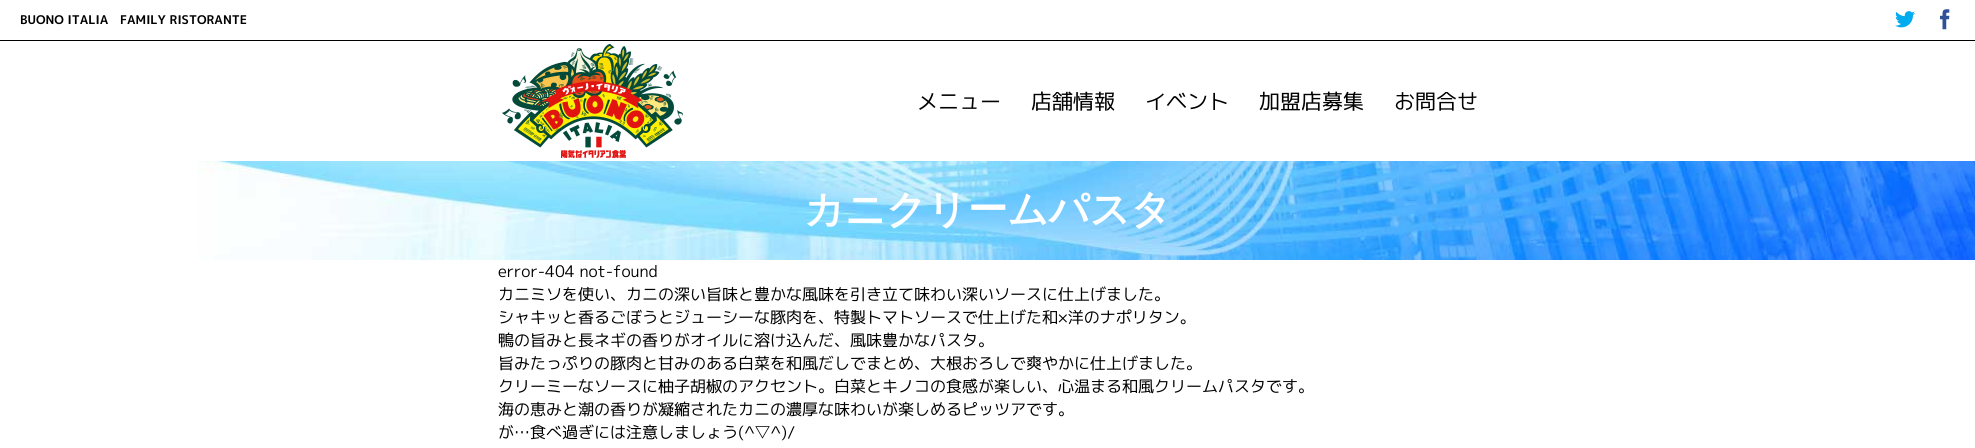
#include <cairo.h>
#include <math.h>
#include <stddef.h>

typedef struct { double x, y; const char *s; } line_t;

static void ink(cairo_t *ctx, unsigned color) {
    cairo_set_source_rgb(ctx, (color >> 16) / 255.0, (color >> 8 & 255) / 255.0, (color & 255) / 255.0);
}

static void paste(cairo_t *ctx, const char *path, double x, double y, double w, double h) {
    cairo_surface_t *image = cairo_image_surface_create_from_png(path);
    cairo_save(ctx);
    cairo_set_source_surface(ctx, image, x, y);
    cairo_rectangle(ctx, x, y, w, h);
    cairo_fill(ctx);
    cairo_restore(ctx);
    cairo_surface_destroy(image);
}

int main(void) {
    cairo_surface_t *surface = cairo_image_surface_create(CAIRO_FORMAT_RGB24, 1975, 448);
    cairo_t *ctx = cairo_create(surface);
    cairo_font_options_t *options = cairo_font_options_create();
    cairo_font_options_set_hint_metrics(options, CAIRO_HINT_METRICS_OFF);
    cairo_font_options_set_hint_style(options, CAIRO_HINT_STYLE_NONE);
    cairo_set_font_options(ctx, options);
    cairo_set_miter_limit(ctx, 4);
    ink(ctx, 0xFFFFFF);
    cairo_paint(ctx);
    ink(ctx, 0x000000);
    cairo_rectangle(ctx, 0, 40, 1975, 1);
    cairo_fill(ctx);
    cairo_select_font_face(ctx, "M PLUS 1p", CAIRO_FONT_SLANT_NORMAL, CAIRO_FONT_WEIGHT_BOLD);
    cairo_set_font_size(ctx, 12);
    cairo_move_to(ctx, 20, 24);
    cairo_show_text(ctx, "BUONO ITALIA");
    cairo_move_to(ctx, 120, 24);
    cairo_show_text(ctx, "FAMILY RISTORANTE");
    paste(ctx, "media/1.png", 1895, 11, 20, 17);
    paste(ctx, "media/2.png", 1940, 9, 10, 21);
    paste(ctx, "media/3.png", 502, 44, 181, 114);
    cairo_select_font_face(ctx, "M PLUS 1p", CAIRO_FONT_SLANT_NORMAL, CAIRO_FONT_WEIGHT_NORMAL);
    cairo_set_font_size(ctx, 21);
    {
        static const line_t items[] = {
            {917, 109, "メニュー"},
            {1031, 109, "店舗情報"},
            {1145, 109, "イベント"},
            {1259, 109, "加盟店募集"},
            {1394, 109, "お問合せ"},
        };
        for (size_t i = 0; i < sizeof items / sizeof *items; i++) {
            cairo_move_to(ctx, items[i].x, items[i].y);
            cairo_show_text(ctx, items[i].s);
        }
    }
    paste(ctx, "media/4.png", 197, 161, 1778, 99);
    cairo_select_font_face(ctx, "WenQuanYi Zen Hei", CAIRO_FONT_SLANT_NORMAL, CAIRO_FONT_WEIGHT_BOLD);
    cairo_set_font_size(ctx, 40);
    ink(ctx, 0xFFFFFF);
    cairo_move_to(ctx, 804, 223);
    cairo_show_text(ctx, "カニクリームパスタ");
    cairo_select_font_face(ctx, "M PLUS 1p", CAIRO_FONT_SLANT_NORMAL, CAIRO_FONT_WEIGHT_NORMAL);
    cairo_set_font_size(ctx, 16);
    ink(ctx, 0x000000);
    {
        static const line_t items[] = {
            {498, 277, "error-404 not-found"},
            {498, 300, "カニミソを使い、カニの深い旨味と豊かな風味を引き立て味わい深いソースに仕上げました。"},
            {498, 323, "シャキッと香るごぼうとジューシーな豚肉を、特製トマトソースで仕上げた和×洋のナポリタン。"},
            {498, 346, "鴨の旨みと長ネギの香りがオイルに溶け込んだ、風味豊かなパスタ。"},
            {498, 369, "旨みたっぷりの豚肉と甘みのある白菜を和風だしでまとめ、大根おろしで爽やかに仕上げました。"},
            {498, 392, "クリーミーなソースに柚子胡椒のアクセント。白菜とキノコの食感が楽しい、心温まる和風クリームパスタです。"},
            {498, 415, "海の恵みと潮の香りが凝縮されたカニの濃厚な味わいが楽しめるピッツアです。"},
            {498, 438, "が…食べ過ぎには注意しましょう(^▽^)/"},
        };
        for (size_t i = 0; i < sizeof items / sizeof *items; i++) {
            cairo_move_to(ctx, items[i].x, items[i].y);
            cairo_show_text(ctx, items[i].s);
        }
    }
    cairo_surface_write_to_png(surface, "image.png");
    cairo_font_options_destroy(options);
    cairo_destroy(ctx);
    cairo_surface_destroy(surface);
    return 0;
}
